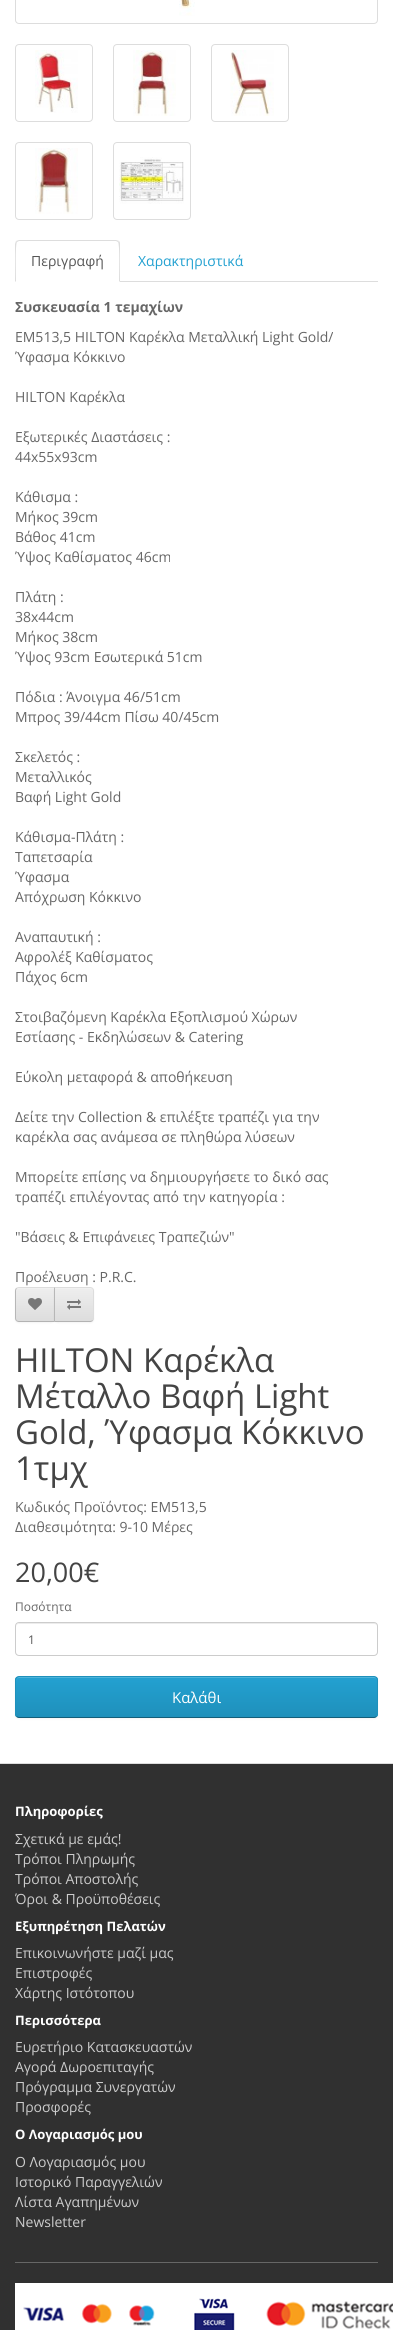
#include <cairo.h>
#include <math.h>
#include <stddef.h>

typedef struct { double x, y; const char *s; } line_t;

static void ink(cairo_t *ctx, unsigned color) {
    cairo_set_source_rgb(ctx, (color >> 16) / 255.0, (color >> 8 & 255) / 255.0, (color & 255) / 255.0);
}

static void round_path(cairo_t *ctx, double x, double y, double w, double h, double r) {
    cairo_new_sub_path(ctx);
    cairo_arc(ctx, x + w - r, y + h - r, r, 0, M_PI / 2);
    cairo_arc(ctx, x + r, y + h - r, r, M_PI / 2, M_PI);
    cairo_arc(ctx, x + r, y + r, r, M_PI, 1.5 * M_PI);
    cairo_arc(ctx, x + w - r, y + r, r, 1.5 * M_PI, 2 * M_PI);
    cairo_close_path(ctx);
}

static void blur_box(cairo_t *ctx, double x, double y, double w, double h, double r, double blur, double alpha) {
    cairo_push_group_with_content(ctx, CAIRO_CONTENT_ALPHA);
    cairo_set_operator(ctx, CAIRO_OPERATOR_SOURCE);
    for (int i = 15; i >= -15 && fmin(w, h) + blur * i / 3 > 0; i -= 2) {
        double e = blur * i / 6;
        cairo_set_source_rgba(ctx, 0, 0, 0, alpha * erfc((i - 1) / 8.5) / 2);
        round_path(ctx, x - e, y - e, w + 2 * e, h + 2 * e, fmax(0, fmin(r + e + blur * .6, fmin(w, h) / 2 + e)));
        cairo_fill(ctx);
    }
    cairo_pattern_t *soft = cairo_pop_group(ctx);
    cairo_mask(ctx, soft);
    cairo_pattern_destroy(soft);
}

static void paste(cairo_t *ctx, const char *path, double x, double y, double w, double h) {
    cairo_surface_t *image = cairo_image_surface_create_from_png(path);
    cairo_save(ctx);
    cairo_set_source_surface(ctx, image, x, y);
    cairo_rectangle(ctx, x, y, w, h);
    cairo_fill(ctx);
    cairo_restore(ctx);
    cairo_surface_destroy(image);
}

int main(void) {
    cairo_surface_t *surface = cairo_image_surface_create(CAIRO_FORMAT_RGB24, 393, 2330);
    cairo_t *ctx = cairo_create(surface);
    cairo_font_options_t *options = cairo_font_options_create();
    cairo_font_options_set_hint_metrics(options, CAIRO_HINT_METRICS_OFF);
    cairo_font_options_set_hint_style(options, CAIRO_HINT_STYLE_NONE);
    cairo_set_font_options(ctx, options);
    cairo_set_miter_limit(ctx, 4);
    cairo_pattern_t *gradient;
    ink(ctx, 0xFFFFFF);
    cairo_paint(ctx);
    round_path(ctx, 15.5, -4.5, 362, 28, 3.5);
    ink(ctx, 0xDDDDDD);
    cairo_set_line_width(ctx, 1);
    cairo_stroke(ctx);
    paste(ctx, "media/1.png", 179, 0, 16, 16);
    round_path(ctx, 15.5, 44.5, 77, 77, 3.5);
    cairo_stroke(ctx);
    paste(ctx, "media/2.png", 35, 50, 43, 63);
    round_path(ctx, 113.5, 44.5, 77, 77, 3.5);
    cairo_stroke(ctx);
    paste(ctx, "media/3.png", 133, 50, 43, 66);
    round_path(ctx, 211.5, 44.5, 77, 77, 3.5);
    cairo_stroke(ctx);
    paste(ctx, "media/4.png", 230, 50, 44, 66);
    round_path(ctx, 15.5, 142.5, 77, 77, 3.5);
    cairo_stroke(ctx);
    paste(ctx, "media/5.png", 35, 148, 43, 66);
    round_path(ctx, 113.5, 142.5, 77, 77, 3.5);
    cairo_stroke(ctx);
    paste(ctx, "media/6.png", 119, 157, 65, 47);
    cairo_rectangle(ctx, 120, 281, 258, 1);
    cairo_fill(ctx);
    cairo_new_path(ctx);
    cairo_move_to(ctx, 19, 240);
    cairo_line_to(ctx, 16, 241);
    cairo_line_to(ctx, 17, 242);
    cairo_line_to(ctx, 19, 241);
    cairo_line_to(ctx, 116, 241);
    cairo_line_to(ctx, 118, 242);
    cairo_line_to(ctx, 119, 241);
    cairo_line_to(ctx, 116, 240);
    cairo_close_path(ctx);
    cairo_fill(ctx);
    cairo_new_path(ctx);
    cairo_move_to(ctx, 120, 282);
    cairo_line_to(ctx, 120, 244);
    cairo_curve_to(ctx, 120, 243, 120, 242, 119, 241);
    cairo_line_to(ctx, 118, 242);
    cairo_curve_to(ctx, 120, 244, 119, 276, 119, 281);
    cairo_close_path(ctx);
    cairo_fill(ctx);
    cairo_new_path(ctx);
    cairo_move_to(ctx, 15, 282);
    cairo_line_to(ctx, 16, 281);
    cairo_curve_to(ctx, 16, 276, 15, 244, 17, 242);
    cairo_line_to(ctx, 16, 241);
    cairo_line_to(ctx, 15, 244);
    cairo_close_path(ctx);
    cairo_fill(ctx);
    cairo_select_font_face(ctx, "Open Sans", CAIRO_FONT_SLANT_NORMAL, CAIRO_FONT_WEIGHT_NORMAL);
    cairo_set_font_size(ctx, 14);
    ink(ctx, 0x555555);
    cairo_move_to(ctx, 31, 266);
    cairo_show_text(ctx, "Περιγραφή");
    ink(ctx, 0x23A1D1);
    cairo_move_to(ctx, 138, 266);
    cairo_show_text(ctx, "Χαρακτηριστικά");
    cairo_select_font_face(ctx, "Open Sans", CAIRO_FONT_SLANT_NORMAL, CAIRO_FONT_WEIGHT_BOLD);
    ink(ctx, 0x666666);
    cairo_move_to(ctx, 15, 312);
    cairo_show_text(ctx, "Συσκευασία 1 τεμαχίων");
    cairo_select_font_face(ctx, "Open Sans", CAIRO_FONT_SLANT_NORMAL, CAIRO_FONT_WEIGHT_NORMAL);
    {
        static const line_t items[] = {
            {15, 342, "ΕΜ513,5 HILTON Καρέκλα Μεταλλική Light Gold/"},
            {15, 362, "Ύφασμα Κόκκινο"},
            {15, 402, "HILTON Καρέκλα"},
            {15, 442, "Εξωτερικές Διαστάσεις :"},
            {15, 462, "44x55x93cm"},
            {15, 502, "Κάθισμα :"},
            {15, 522, "Μήκος 39cm"},
            {15, 542, "Βάθος 41cm"},
            {15, 562, "Ύψος Καθίσματος 46cm"},
            {15, 602, "Πλάτη :"},
            {15, 622, "38x44cm"},
            {15, 642, "Μήκος 38cm"},
            {15, 662, "Ύψος 93cm Εσωτερικά 51cm"},
            {15, 702, "Πόδια : Άνοιγμα 46/51cm"},
            {15, 722, "Μπρος 39/44cm Πίσω 40/45cm"},
            {15, 762, "Σκελετός :"},
            {15, 782, "Μεταλλικός"},
            {15, 802, "Βαφή Light Gold"},
            {15, 842, "Κάθισμα-Πλάτη :"},
            {15, 862, "Ταπετσαρία"},
            {15, 882, "Ύφασμα"},
            {15, 902, "Απόχρωση Κόκκινο"},
            {15, 942, "Αναπαυτική :"},
            {15, 962, "Αφρολέξ Καθίσματος"},
            {15, 982, "Πάχος 6cm"},
            {15, 1022, "Στοιβαζόμενη Καρέκλα Εξοπλισμού Χώρων"},
            {15, 1042, "Εστίασης - Εκδηλώσεων & Catering"},
            {15, 1082, "Εύκολη μεταφορά & αποθήκευση"},
            {15, 1122, "Δείτε την Collection & επιλέξτε τραπέζι για την"},
            {15, 1142, "καρέκλα σας ανάμεσα σε πληθώρα λύσεων"},
            {15, 1182, "Μπορείτε επίσης να δημιουργήσετε το δικό σας"},
            {15, 1202, "τραπέζι επιλέγοντας από την κατηγορία :"},
            {15, 1242, "\"Βάσεις & Επιφάνειες Τραπεζιών\""},
            {15, 1282, "Προέλευση : P.R.C."},
        };
        for (size_t i = 0; i < sizeof items / sizeof *items; i++) {
            cairo_move_to(ctx, items[i].x, items[i].y);
            cairo_show_text(ctx, items[i].s);
        }
    }
    ink(ctx, 0x000000);
    blur_box(ctx, 15, 1288, 40, 35, 4, 1, 0.05);
    cairo_save(ctx);
    cairo_new_path(ctx);
    cairo_move_to(ctx, 19, 1287);
    cairo_line_to(ctx, 55, 1287);
    cairo_line_to(ctx, 55, 1322);
    cairo_line_to(ctx, 19, 1322);
    cairo_curve_to(ctx, 17, 1322, 15, 1320, 15, 1318);
    cairo_line_to(ctx, 15, 1291);
    cairo_curve_to(ctx, 15, 1289, 17, 1287, 19, 1287);
    cairo_close_path(ctx);
    cairo_clip(ctx);
    gradient = cairo_pattern_create_linear(35, 1288, 35, 1321);
    cairo_pattern_add_color_stop_rgba(gradient, 0, 0.933, 0.933, 0.933, 1);
    cairo_pattern_add_color_stop_rgba(gradient, 1, 0.867, 0.867, 0.867, 1);
    cairo_set_source(ctx, gradient);
    cairo_pattern_destroy(gradient);
    cairo_rectangle(ctx, 15, 1288, 39, 33);
    cairo_fill(ctx);
    cairo_restore(ctx);
    ink(ctx, 0xF1F1F1);
    cairo_new_path(ctx);
    cairo_move_to(ctx, 19, 1289);
    cairo_line_to(ctx, 54, 1289);
    cairo_line_to(ctx, 54, 1288);
    cairo_line_to(ctx, 19, 1288);
    cairo_curve_to(ctx, 17.5, 1288, 16, 1289.5, 16, 1291);
    cairo_line_to(ctx, 16, 1292);
    cairo_curve_to(ctx, 16, 1290, 17, 1289, 19, 1289);
    cairo_close_path(ctx);
    cairo_fill(ctx);
    ink(ctx, 0xDDDDDD);
    cairo_new_path(ctx);
    cairo_move_to(ctx, 19, 1287);
    cairo_curve_to(ctx, 18, 1287, 17, 1287.5, 16, 1288);
    cairo_line_to(ctx, 17, 1289);
    cairo_curve_to(ctx, 17, 1288, 18, 1288, 19, 1288);
    cairo_line_to(ctx, 54, 1288);
    cairo_line_to(ctx, 55, 1287);
    cairo_close_path(ctx);
    cairo_fill(ctx);
    ink(ctx, 0xB3B3B3);
    cairo_new_path(ctx);
    cairo_move_to(ctx, 55, 1322);
    cairo_line_to(ctx, 54, 1321);
    cairo_line_to(ctx, 19, 1321);
    cairo_curve_to(ctx, 18, 1321, 17, 1321, 17, 1320);
    cairo_line_to(ctx, 16, 1321);
    cairo_curve_to(ctx, 17, 1321.5, 18, 1322, 19, 1322);
    cairo_close_path(ctx);
    cairo_fill(ctx);
    ink(ctx, 0xB7B7B7);
    cairo_new_path(ctx);
    cairo_move_to(ctx, 15, 1291);
    cairo_line_to(ctx, 15, 1318);
    cairo_curve_to(ctx, 15, 1319, 15.5, 1320, 16, 1321);
    cairo_line_to(ctx, 17, 1320);
    cairo_curve_to(ctx, 16, 1320, 16, 1319, 16, 1318);
    cairo_line_to(ctx, 16, 1291);
    cairo_curve_to(ctx, 16, 1290, 16, 1289, 17, 1289);
    cairo_line_to(ctx, 16, 1288);
    cairo_curve_to(ctx, 15.5, 1289, 15, 1290, 15, 1291);
    cairo_close_path(ctx);
    cairo_fill(ctx);
    paste(ctx, "media/7.png", 28, 1298, 14, 12);
    ink(ctx, 0x000000);
    blur_box(ctx, 54, 1288, 40, 35, 4, 1, 0.05);
    cairo_save(ctx);
    cairo_new_path(ctx);
    cairo_move_to(ctx, 54, 1287);
    cairo_line_to(ctx, 90, 1287);
    cairo_curve_to(ctx, 92, 1287, 94, 1289, 94, 1291);
    cairo_line_to(ctx, 94, 1318);
    cairo_curve_to(ctx, 94, 1320, 92, 1322, 90, 1322);
    cairo_line_to(ctx, 54, 1322);
    cairo_close_path(ctx);
    cairo_clip(ctx);
    gradient = cairo_pattern_create_linear(74, 1288, 74, 1321);
    cairo_pattern_add_color_stop_rgba(gradient, 0, 0.933, 0.933, 0.933, 1);
    cairo_pattern_add_color_stop_rgba(gradient, 1, 0.867, 0.867, 0.867, 1);
    cairo_set_source(ctx, gradient);
    cairo_pattern_destroy(gradient);
    cairo_rectangle(ctx, 55, 1288, 39, 33);
    cairo_fill(ctx);
    cairo_restore(ctx);
    ink(ctx, 0xF1F1F1);
    cairo_new_path(ctx);
    cairo_move_to(ctx, 55, 1289);
    cairo_line_to(ctx, 90, 1289);
    cairo_curve_to(ctx, 92, 1289, 93, 1290, 93, 1292);
    cairo_line_to(ctx, 93, 1291);
    cairo_curve_to(ctx, 93, 1289.5, 91.5, 1288, 90, 1288);
    cairo_line_to(ctx, 55, 1288);
    cairo_close_path(ctx);
    cairo_fill(ctx);
    ink(ctx, 0xDDDDDD);
    cairo_new_path(ctx);
    cairo_move_to(ctx, 54, 1287);
    cairo_line_to(ctx, 55, 1288);
    cairo_line_to(ctx, 90, 1288);
    cairo_curve_to(ctx, 91, 1288, 92, 1288, 92, 1289);
    cairo_line_to(ctx, 93, 1288);
    cairo_curve_to(ctx, 92, 1287.5, 91, 1287, 90, 1287);
    cairo_close_path(ctx);
    cairo_fill(ctx);
    cairo_new_path(ctx);
    cairo_move_to(ctx, 94, 1318);
    cairo_line_to(ctx, 94, 1291);
    cairo_curve_to(ctx, 94, 1290, 93.5, 1289, 93, 1288);
    cairo_line_to(ctx, 92, 1289);
    cairo_curve_to(ctx, 93, 1289, 93, 1290, 93, 1291);
    cairo_line_to(ctx, 93, 1318);
    cairo_curve_to(ctx, 93, 1319, 93, 1320, 92, 1320);
    cairo_line_to(ctx, 93, 1321);
    cairo_curve_to(ctx, 93.5, 1320, 94, 1319, 94, 1318);
    cairo_close_path(ctx);
    cairo_fill(ctx);
    ink(ctx, 0xB3B3B3);
    cairo_new_path(ctx);
    cairo_move_to(ctx, 90, 1322);
    cairo_curve_to(ctx, 91, 1322, 92, 1321.5, 93, 1321);
    cairo_line_to(ctx, 92, 1320);
    cairo_curve_to(ctx, 92, 1321, 91, 1321, 90, 1321);
    cairo_line_to(ctx, 55, 1321);
    cairo_line_to(ctx, 54, 1322);
    cairo_close_path(ctx);
    cairo_fill(ctx);
    ink(ctx, 0xB7B7B7);
    cairo_new_path(ctx);
    cairo_move_to(ctx, 54, 1287);
    cairo_line_to(ctx, 54, 1322);
    cairo_line_to(ctx, 55, 1321);
    cairo_line_to(ctx, 55, 1288);
    cairo_close_path(ctx);
    cairo_fill(ctx);
    paste(ctx, "media/8.png", 67, 1299, 14, 11);
    cairo_set_font_size(ctx, 33);
    ink(ctx, 0x444444);
    {
        static const line_t items[] = {
            {15, 1372, "HILTON Καρέκλα"},
            {15, 1408, "Μέταλλο Βαφή Light"},
            {15, 1444, "Gold, Ύφασμα Κόκκινο"},
            {15, 1480, "1τμχ"},
        };
        for (size_t i = 0; i < sizeof items / sizeof *items; i++) {
            cairo_move_to(ctx, items[i].x, items[i].y);
            cairo_show_text(ctx, items[i].s);
        }
    }
    cairo_set_font_size(ctx, 14);
    ink(ctx, 0x666666);
    cairo_move_to(ctx, 15, 1512);
    cairo_show_text(ctx, "Κωδικός Προϊόντος: ΕΜ513,5");
    cairo_move_to(ctx, 15, 1532);
    cairo_show_text(ctx, "Διαθεσιμότητα: 9-10 Μέρες");
    cairo_set_font_size(ctx, 27);
    ink(ctx, 0x444444);
    cairo_move_to(ctx, 15, 1582);
    cairo_show_text(ctx, "20,00€");
    cairo_set_font_size(ctx, 12);
    ink(ctx, 0x666666);
    cairo_move_to(ctx, 15, 1611);
    cairo_show_text(ctx, "Ποσότητα");
    ink(ctx, 0xECECEC);
    cairo_new_path(ctx);
    cairo_move_to(ctx, 19, 1624);
    cairo_line_to(ctx, 374, 1624);
    cairo_curve_to(ctx, 376, 1624, 377, 1625, 377, 1627);
    cairo_curve_to(ctx, 377, 1625, 376, 1623, 374, 1623);
    cairo_line_to(ctx, 19, 1623);
    cairo_line_to(ctx, 17, 1624);
    cairo_line_to(ctx, 16, 1627);
    cairo_curve_to(ctx, 16, 1625, 17, 1624, 19, 1624);
    cairo_close_path(ctx);
    cairo_fill(ctx);
    round_path(ctx, 15.5, 1622.5, 362, 33, 3.5);
    ink(ctx, 0xCCCCCC);
    cairo_stroke(ctx);
    ink(ctx, 0x555555);
    cairo_move_to(ctx, 28, 1644);
    cairo_show_text(ctx, "1");
    ink(ctx, 0x000000);
    blur_box(ctx, 15, 1677, 363, 42, 4, 1, 0.05);
    cairo_save(ctx);
    round_path(ctx, 15, 1676, 363, 42, 4);
    cairo_clip(ctx);
    gradient = cairo_pattern_create_linear(197, 1677, 197, 1717);
    cairo_pattern_add_color_stop_rgba(gradient, 0, 0.137, 0.631, 0.82, 1);
    cairo_pattern_add_color_stop_rgba(gradient, 1, 0.122, 0.565, 0.733, 1);
    cairo_set_source(ctx, gradient);
    cairo_pattern_destroy(gradient);
    cairo_rectangle(ctx, 15, 1677, 363, 40);
    cairo_fill(ctx);
    cairo_restore(ctx);
    ink(ctx, 0x4FB4DA);
    cairo_new_path(ctx);
    cairo_move_to(ctx, 19, 1678);
    cairo_line_to(ctx, 374, 1678);
    cairo_curve_to(ctx, 376, 1678, 377, 1679, 377, 1681);
    cairo_curve_to(ctx, 377, 1679, 376, 1677, 374, 1677);
    cairo_line_to(ctx, 19, 1677);
    cairo_line_to(ctx, 17, 1678);
    cairo_line_to(ctx, 16, 1681);
    cairo_curve_to(ctx, 16, 1679, 17, 1678, 19, 1678);
    cairo_close_path(ctx);
    cairo_fill(ctx);
    cairo_new_path(ctx);
    cairo_move_to(ctx, 376.5, 1716.5);
    cairo_curve_to(ctx, 376, 1717, 375, 1717.5, 374, 1717.5);
    cairo_line_to(ctx, 19, 1717.5);
    cairo_curve_to(ctx, 18, 1717.5, 17, 1717, 16.5, 1716.5);
    ink(ctx, 0x145E7A);
    cairo_stroke(ctx);
    cairo_new_path(ctx);
    cairo_move_to(ctx, 16.5, 1716.5);
    cairo_curve_to(ctx, 16, 1716, 15.5, 1715, 15.5, 1714);
    cairo_line_to(ctx, 15.5, 1680);
    cairo_curve_to(ctx, 15.5, 1679, 16, 1678, 16.5, 1677.5);
    cairo_curve_to(ctx, 17, 1677, 18, 1676.5, 19, 1676.5);
    cairo_line_to(ctx, 374, 1676.5);
    cairo_curve_to(ctx, 375, 1676.5, 376, 1677, 376.5, 1677.5);
    cairo_curve_to(ctx, 377, 1678, 377.5, 1679, 377.5, 1680);
    cairo_line_to(ctx, 377.5, 1714);
    cairo_curve_to(ctx, 377.5, 1715, 377, 1716, 376.5, 1716.5);
    ink(ctx, 0x1F90BB);
    cairo_stroke(ctx);
    cairo_set_font_size(ctx, 15);
    ink(ctx, 0xFFFFFF);
    cairo_move_to(ctx, 172, 1703);
    cairo_show_text(ctx, "Καλάθι");
    ink(ctx, 0x303030);
    cairo_rectangle(ctx, 0, 1764, 393, 566);
    cairo_fill(ctx);
    ink(ctx, 0xDDDDDD);
    cairo_rectangle(ctx, 0, 1763, 393, 1);
    cairo_fill(ctx);
    cairo_select_font_face(ctx, "Open Sans", CAIRO_FONT_SLANT_NORMAL, CAIRO_FONT_WEIGHT_BOLD);
    cairo_set_font_size(ctx, 13);
    ink(ctx, 0xFFFFFF);
    cairo_move_to(ctx, 15, 1816);
    cairo_show_text(ctx, "Πληροφορίες");
    cairo_select_font_face(ctx, "Open Sans", CAIRO_FONT_SLANT_NORMAL, CAIRO_FONT_WEIGHT_NORMAL);
    cairo_set_font_size(ctx, 14);
    ink(ctx, 0xCCCCCC);
    {
        static const line_t items[] = {
            {15, 1844, "Σχετικά με εμάς!"},
            {15, 1864, "Τρόποι Πληρωμής"},
            {15, 1884, "Τρόποι Αποστολής"},
            {15, 1904, "Όροι & Προϋποθέσεις"},
        };
        for (size_t i = 0; i < sizeof items / sizeof *items; i++) {
            cairo_move_to(ctx, items[i].x, items[i].y);
            cairo_show_text(ctx, items[i].s);
        }
    }
    cairo_select_font_face(ctx, "Open Sans", CAIRO_FONT_SLANT_NORMAL, CAIRO_FONT_WEIGHT_BOLD);
    cairo_set_font_size(ctx, 13);
    ink(ctx, 0xFFFFFF);
    cairo_move_to(ctx, 15, 1931);
    cairo_show_text(ctx, "Εξυπηρέτηση Πελατών");
    cairo_select_font_face(ctx, "Open Sans", CAIRO_FONT_SLANT_NORMAL, CAIRO_FONT_WEIGHT_NORMAL);
    cairo_set_font_size(ctx, 14);
    ink(ctx, 0xCCCCCC);
    {
        static const line_t items[] = {
            {15, 1958, "Επικοινωνήστε μαζί μας"},
            {15, 1978, "Επιστροφές"},
            {15, 1998, "Χάρτης Ιστότοπου"},
        };
        for (size_t i = 0; i < sizeof items / sizeof *items; i++) {
            cairo_move_to(ctx, items[i].x, items[i].y);
            cairo_show_text(ctx, items[i].s);
        }
    }
    cairo_select_font_face(ctx, "Open Sans", CAIRO_FONT_SLANT_NORMAL, CAIRO_FONT_WEIGHT_BOLD);
    cairo_set_font_size(ctx, 13);
    ink(ctx, 0xFFFFFF);
    cairo_move_to(ctx, 15, 2025);
    cairo_show_text(ctx, "Περισσότερα");
    cairo_select_font_face(ctx, "Open Sans", CAIRO_FONT_SLANT_NORMAL, CAIRO_FONT_WEIGHT_NORMAL);
    cairo_set_font_size(ctx, 14);
    ink(ctx, 0xCCCCCC);
    {
        static const line_t items[] = {
            {15, 2052, "Ευρετήριο Κατασκευαστών"},
            {15, 2072, "Αγορά Δωροεπιταγής"},
            {15, 2092, "Πρόγραμμα Συνεργατών"},
            {15, 2112, "Προσφορές"},
        };
        for (size_t i = 0; i < sizeof items / sizeof *items; i++) {
            cairo_move_to(ctx, items[i].x, items[i].y);
            cairo_show_text(ctx, items[i].s);
        }
    }
    cairo_select_font_face(ctx, "Open Sans", CAIRO_FONT_SLANT_NORMAL, CAIRO_FONT_WEIGHT_BOLD);
    cairo_set_font_size(ctx, 13);
    ink(ctx, 0xFFFFFF);
    cairo_move_to(ctx, 15, 2139);
    cairo_show_text(ctx, "Ο Λογαριασμός μου");
    cairo_select_font_face(ctx, "Open Sans", CAIRO_FONT_SLANT_NORMAL, CAIRO_FONT_WEIGHT_NORMAL);
    cairo_set_font_size(ctx, 14);
    ink(ctx, 0xCCCCCC);
    {
        static const line_t items[] = {
            {15, 2167, "Ο Λογαριασμός μου"},
            {15, 2187, "Ιστορικό Παραγγελιών"},
            {15, 2207, "Λίστα Αγαπημένων"},
            {15, 2227, "Newsletter"},
        };
        for (size_t i = 0; i < sizeof items / sizeof *items; i++) {
            cairo_move_to(ctx, items[i].x, items[i].y);
            cairo_show_text(ctx, items[i].s);
        }
    }
    ink(ctx, 0x666666);
    cairo_rectangle(ctx, 15, 2262, 363, 1);
    cairo_fill(ctx);
    paste(ctx, "media/9.png", 15, 2283, 378, 47);
    cairo_surface_write_to_png(surface, "image.png");
    cairo_font_options_destroy(options);
    cairo_destroy(ctx);
    cairo_surface_destroy(surface);
    return 0;
}
